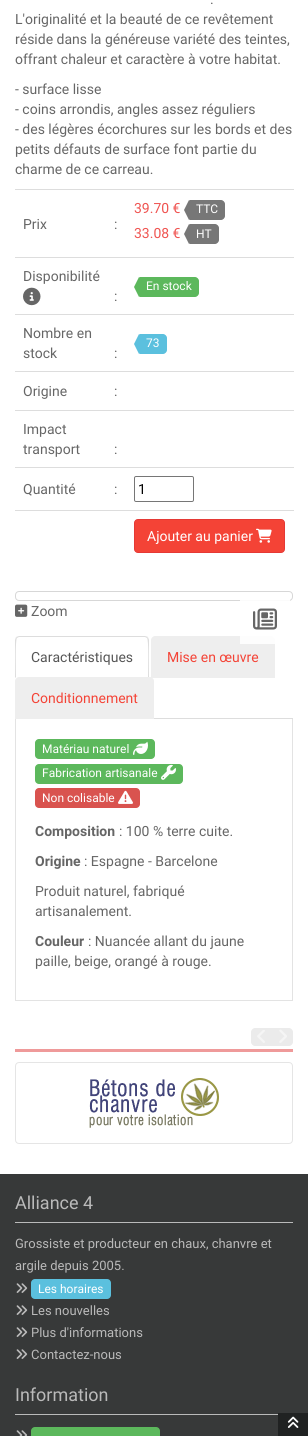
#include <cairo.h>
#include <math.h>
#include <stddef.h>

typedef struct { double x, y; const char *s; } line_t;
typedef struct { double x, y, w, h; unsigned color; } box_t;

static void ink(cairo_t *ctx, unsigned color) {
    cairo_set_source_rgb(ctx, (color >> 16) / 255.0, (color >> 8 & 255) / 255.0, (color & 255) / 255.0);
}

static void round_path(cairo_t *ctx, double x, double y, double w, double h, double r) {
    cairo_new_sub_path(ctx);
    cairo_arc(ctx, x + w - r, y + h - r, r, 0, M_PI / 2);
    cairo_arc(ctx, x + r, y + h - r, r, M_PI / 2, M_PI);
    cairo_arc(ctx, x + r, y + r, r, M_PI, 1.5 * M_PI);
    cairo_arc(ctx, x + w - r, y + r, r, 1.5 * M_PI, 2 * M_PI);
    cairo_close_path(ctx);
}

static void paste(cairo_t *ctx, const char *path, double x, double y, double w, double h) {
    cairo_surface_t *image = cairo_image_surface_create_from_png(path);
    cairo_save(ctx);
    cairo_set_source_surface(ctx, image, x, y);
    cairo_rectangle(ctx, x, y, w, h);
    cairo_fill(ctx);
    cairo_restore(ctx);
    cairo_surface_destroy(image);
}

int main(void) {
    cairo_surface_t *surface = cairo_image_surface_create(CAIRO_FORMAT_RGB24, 308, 1436);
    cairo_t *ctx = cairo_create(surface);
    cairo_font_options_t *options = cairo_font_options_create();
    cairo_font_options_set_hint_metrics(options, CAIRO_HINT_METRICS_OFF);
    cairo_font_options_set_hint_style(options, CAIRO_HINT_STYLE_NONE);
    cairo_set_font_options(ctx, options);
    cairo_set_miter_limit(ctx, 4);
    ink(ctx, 0xFFFFFF);
    cairo_paint(ctx);
    cairo_select_font_face(ctx, "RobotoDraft", CAIRO_FONT_SLANT_NORMAL, CAIRO_FONT_WEIGHT_NORMAL);
    cairo_set_font_size(ctx, 14);
    ink(ctx, 0x666666);
    {
        static const line_t items[] = {
            {210, 4, "."},
            {15, 24, "L'originalité et la beauté de ce revêtement"},
            {15, 44, "réside dans la généreuse variété des teintes,"},
            {15, 64, "offrant chaleur et caractère à votre habitat."},
            {15, 94, "- surface lisse"},
            {15, 114, "- coins arrondis, angles assez réguliers"},
            {15, 134, "- des légères écorchures sur les bords et des"},
            {15, 154, "petits défauts de surface font partie du"},
            {15, 174, "charme de ce carreau."},
            {23, 229, "Prix"},
            {114, 229, ":"},
        };
        for (size_t i = 0; i < sizeof items / sizeof *items; i++) {
            cairo_move_to(ctx, items[i].x, items[i].y);
            cairo_show_text(ctx, items[i].s);
        }
    }
    ink(ctx, 0xDDDDDD);
    cairo_rectangle(ctx, 15, 189, 279, 1);
    cairo_fill(ctx);
    ink(ctx, 0xEF5350);
    cairo_move_to(ctx, 134, 213);
    cairo_show_text(ctx, "39.70 €");
    ink(ctx, 0x777777);
    cairo_new_path(ctx);
    cairo_move_to(ctx, 190, 200);
    cairo_line_to(ctx, 221, 200);
    cairo_curve_to(ctx, 223, 200, 225, 202, 225, 204);
    cairo_line_to(ctx, 225, 216);
    cairo_curve_to(ctx, 225, 218, 223, 220, 221, 220);
    cairo_line_to(ctx, 190, 220);
    cairo_curve_to(ctx, 189.5, 220, 189, 219.5, 189, 219);
    cairo_line_to(ctx, 189, 201);
    cairo_curve_to(ctx, 189, 200.5, 189.5, 200, 190, 200);
    cairo_close_path(ctx);
    cairo_fill(ctx);
    cairo_new_path(ctx);
    cairo_move_to(ctx, 189, 200);
    cairo_line_to(ctx, 189, 220);
    cairo_line_to(ctx, 184, 210);
    cairo_close_path(ctx);
    cairo_fill(ctx);
    cairo_set_font_size(ctx, 12);
    ink(ctx, 0xFFFFFF);
    cairo_move_to(ctx, 196, 213);
    cairo_show_text(ctx, "TTC");
    cairo_set_font_size(ctx, 14);
    ink(ctx, 0xEF5350);
    cairo_move_to(ctx, 134, 238);
    cairo_show_text(ctx, "33.08 €");
    ink(ctx, 0x777777);
    cairo_new_path(ctx);
    cairo_move_to(ctx, 190, 224);
    cairo_line_to(ctx, 215, 224);
    cairo_curve_to(ctx, 217, 224, 219, 226, 219, 228);
    cairo_line_to(ctx, 219, 240);
    cairo_curve_to(ctx, 219, 242, 217, 244, 215, 244);
    cairo_line_to(ctx, 190, 244);
    cairo_curve_to(ctx, 189.5, 244, 189, 243.5, 189, 243);
    cairo_line_to(ctx, 189, 225);
    cairo_curve_to(ctx, 189, 224.5, 189.5, 224, 190, 224);
    cairo_close_path(ctx);
    cairo_fill(ctx);
    cairo_new_path(ctx);
    cairo_move_to(ctx, 189, 224);
    cairo_line_to(ctx, 189, 244);
    cairo_line_to(ctx, 184, 234);
    cairo_close_path(ctx);
    cairo_fill(ctx);
    cairo_set_font_size(ctx, 12);
    ink(ctx, 0xFFFFFF);
    cairo_move_to(ctx, 196, 238);
    cairo_show_text(ctx, "HT");
    cairo_set_font_size(ctx, 14);
    ink(ctx, 0x666666);
    cairo_move_to(ctx, 23, 281);
    cairo_show_text(ctx, "Disponibilité");
    paste(ctx, "media/1.png", 23, 287, 18, 19);
    cairo_move_to(ctx, 114, 301);
    cairo_show_text(ctx, ":");
    ink(ctx, 0xDDDDDD);
    cairo_rectangle(ctx, 15, 257, 279, 1);
    cairo_fill(ctx);
    ink(ctx, 0x5CB85C);
    cairo_new_path(ctx);
    cairo_move_to(ctx, 140, 277);
    cairo_line_to(ctx, 195, 277);
    cairo_curve_to(ctx, 197, 277, 199, 279, 199, 281);
    cairo_line_to(ctx, 199, 293);
    cairo_curve_to(ctx, 199, 295, 197, 297, 195, 297);
    cairo_line_to(ctx, 140, 297);
    cairo_curve_to(ctx, 139.5, 297, 139, 296.5, 139, 296);
    cairo_line_to(ctx, 139, 278);
    cairo_curve_to(ctx, 139, 277.5, 139.5, 277, 140, 277);
    cairo_close_path(ctx);
    cairo_fill(ctx);
    cairo_new_path(ctx);
    cairo_move_to(ctx, 139, 277);
    cairo_line_to(ctx, 139, 297);
    cairo_line_to(ctx, 134, 287);
    cairo_close_path(ctx);
    cairo_fill(ctx);
    cairo_set_font_size(ctx, 12);
    ink(ctx, 0xFFFFFF);
    cairo_move_to(ctx, 146, 290);
    cairo_show_text(ctx, "En stock");
    cairo_set_font_size(ctx, 14);
    ink(ctx, 0x666666);
    {
        static const line_t items[] = {
            {23, 338, "Nombre en"},
            {23, 358, "stock"},
            {114, 358, ":"},
        };
        for (size_t i = 0; i < sizeof items / sizeof *items; i++) {
            cairo_move_to(ctx, items[i].x, items[i].y);
            cairo_show_text(ctx, items[i].s);
        }
    }
    ink(ctx, 0xDDDDDD);
    cairo_rectangle(ctx, 15, 314, 279, 1);
    cairo_fill(ctx);
    ink(ctx, 0x5BC0DE);
    cairo_new_path(ctx);
    cairo_move_to(ctx, 140, 334);
    cairo_line_to(ctx, 163, 334);
    cairo_curve_to(ctx, 165, 334, 167, 336, 167, 338);
    cairo_line_to(ctx, 167, 350);
    cairo_curve_to(ctx, 167, 352, 165, 354, 163, 354);
    cairo_line_to(ctx, 140, 354);
    cairo_curve_to(ctx, 139.5, 354, 139, 353.5, 139, 353);
    cairo_line_to(ctx, 139, 335);
    cairo_curve_to(ctx, 139, 334.5, 139.5, 334, 140, 334);
    cairo_close_path(ctx);
    cairo_fill(ctx);
    cairo_new_path(ctx);
    cairo_move_to(ctx, 139, 334);
    cairo_line_to(ctx, 139, 354);
    cairo_line_to(ctx, 134, 344);
    cairo_close_path(ctx);
    cairo_fill(ctx);
    cairo_set_font_size(ctx, 12);
    ink(ctx, 0xFFFFFF);
    cairo_move_to(ctx, 146, 347);
    cairo_show_text(ctx, "73");
    ink(ctx, 0xDDDDDD);
    cairo_rectangle(ctx, 15, 371, 279, 1);
    cairo_fill(ctx);
    cairo_set_font_size(ctx, 14);
    ink(ctx, 0x666666);
    cairo_move_to(ctx, 23, 396);
    cairo_show_text(ctx, "Origine");
    cairo_move_to(ctx, 114, 396);
    cairo_show_text(ctx, ":");
    ink(ctx, 0xDDDDDD);
    cairo_rectangle(ctx, 15, 410, 279, 1);
    cairo_fill(ctx);
    ink(ctx, 0x666666);
    {
        static const line_t items[] = {
            {23, 434, "Impact"},
            {23, 454, "transport"},
            {114, 454, ":"},
            {23, 494, "Quantité"},
            {114, 494, ":"},
        };
        for (size_t i = 0; i < sizeof items / sizeof *items; i++) {
            cairo_move_to(ctx, items[i].x, items[i].y);
            cairo_show_text(ctx, items[i].s);
        }
    }
    ink(ctx, 0xDDDDDD);
    cairo_rectangle(ctx, 15, 467, 279, 1);
    cairo_fill(ctx);
    round_path(ctx, 134.5, 476.5, 59, 25, 1.5);
    ink(ctx, 0x767676);
    cairo_set_line_width(ctx, 1);
    cairo_stroke(ctx);
    ink(ctx, 0x000000);
    cairo_move_to(ctx, 138, 494);
    cairo_show_text(ctx, "1");
    ink(ctx, 0xDDDDDD);
    cairo_rectangle(ctx, 15, 510, 279, 1);
    cairo_fill(ctx);
    ink(ctx, 0xF44336);
    round_path(ctx, 134.5, 519.5, 150, 33, 3.5);
    cairo_fill_preserve(ctx);
    ink(ctx, 0xE53935);
    cairo_stroke(ctx);
    ink(ctx, 0xFFFFFF);
    cairo_move_to(ctx, 147, 541);
    cairo_show_text(ctx, "Ajouter au panier");
    paste(ctx, "media/2.png", 256, 528, 16, 15);
    round_path(ctx, 15.5, 591.5, 277, 9, 3.5);
    ink(ctx, 0xD7D7D7);
    cairo_stroke(ctx);
    paste(ctx, "media/3.png", 15, 604, 13, 13);
    ink(ctx, 0x666666);
    cairo_move_to(ctx, 31, 616);
    cairo_show_text(ctx, "Zoom");
    ink(ctx, 0xEEEEEE);
    cairo_new_path(ctx);
    cairo_move_to(ctx, 155, 636);
    cairo_line_to(ctx, 271, 636);
    cairo_curve_to(ctx, 273, 636, 275, 638, 275, 640);
    cairo_line_to(ctx, 275, 678);
    cairo_line_to(ctx, 151, 678);
    cairo_line_to(ctx, 151, 640);
    cairo_curve_to(ctx, 151, 638, 153, 636, 155, 636);
    cairo_close_path(ctx);
    cairo_fill(ctx);
    cairo_set_source_rgba(ctx, 1, 1, 1, 0.9);
    cairo_rectangle(ctx, 240, 599, 50, 45);
    cairo_fill(ctx);
    paste(ctx, "media/4.png", 253, 608, 24, 22);
    ink(ctx, 0xDDDDDD);
    cairo_rectangle(ctx, 154, 718, 139, 1);
    cairo_fill(ctx);
    cairo_new_path(ctx);
    cairo_move_to(ctx, 19, 636);
    cairo_line_to(ctx, 16, 637);
    cairo_line_to(ctx, 17, 638);
    cairo_line_to(ctx, 19, 637);
    cairo_line_to(ctx, 145, 637);
    cairo_line_to(ctx, 147, 638);
    cairo_line_to(ctx, 148, 637);
    cairo_line_to(ctx, 145, 636);
    cairo_close_path(ctx);
    cairo_fill(ctx);
    cairo_new_path(ctx);
    cairo_move_to(ctx, 149, 678);
    cairo_line_to(ctx, 149, 640);
    cairo_curve_to(ctx, 149, 639, 148, 638, 148, 637);
    cairo_line_to(ctx, 147, 638);
    cairo_curve_to(ctx, 149, 640, 148, 672, 148, 677);
    cairo_close_path(ctx);
    cairo_fill(ctx);
    cairo_new_path(ctx);
    cairo_move_to(ctx, 15, 678);
    cairo_line_to(ctx, 16, 677);
    cairo_curve_to(ctx, 16, 672, 15, 640, 17, 638);
    cairo_line_to(ctx, 16, 637);
    cairo_line_to(ctx, 15, 640);
    cairo_close_path(ctx);
    cairo_fill(ctx);
    ink(ctx, 0x555555);
    cairo_move_to(ctx, 31, 662);
    cairo_show_text(ctx, "Caractéristiques");
    ink(ctx, 0xF44336);
    cairo_move_to(ctx, 167, 662);
    cairo_show_text(ctx, "Mise en œuvre");
    ink(ctx, 0xEEEEEE);
    cairo_new_path(ctx);
    cairo_move_to(ctx, 19, 677);
    cairo_line_to(ctx, 150, 677);
    cairo_curve_to(ctx, 152, 677, 154, 679, 154, 681);
    cairo_line_to(ctx, 154, 719);
    cairo_line_to(ctx, 15, 719);
    cairo_line_to(ctx, 15, 681);
    cairo_curve_to(ctx, 15, 679, 17, 677, 19, 677);
    cairo_close_path(ctx);
    cairo_fill(ctx);
    ink(ctx, 0xF44336);
    cairo_move_to(ctx, 31, 703);
    cairo_show_text(ctx, "Conditionnement");
    {
        static const box_t items[] = {
            {292, 719, 1, 282, 0xE3E3E3},
            {15, 1000, 278, 1, 0xE3E3E3},
            {15, 719, 1, 282, 0xE3E3E3},
        };
        for (size_t i = 0; i < sizeof items / sizeof *items; i++) {
            ink(ctx, items[i].color);
            cairo_rectangle(ctx, items[i].x, items[i].y, items[i].w, items[i].h);
            cairo_fill(ctx);
        }
    }
    ink(ctx, 0x5CB85C);
    round_path(ctx, 35, 739, 120, 20, 4);
    cairo_fill(ctx);
    cairo_set_font_size(ctx, 12);
    ink(ctx, 0xFFFFFF);
    cairo_move_to(ctx, 42, 753);
    cairo_show_text(ctx, "Matériau naturel");
    paste(ctx, "media/5.png", 133, 741, 15, 14);
    ink(ctx, 0x5CB85C);
    round_path(ctx, 35, 764, 148, 20, 4);
    cairo_fill(ctx);
    ink(ctx, 0xFFFFFF);
    cairo_move_to(ctx, 42, 777);
    cairo_show_text(ctx, "Fabrication artisanale");
    paste(ctx, "media/6.png", 161, 764, 15, 16);
    ink(ctx, 0xD9534F);
    round_path(ctx, 35, 788, 105, 20, 4);
    cairo_fill(ctx);
    ink(ctx, 0xFFFFFF);
    cairo_move_to(ctx, 42, 802);
    cairo_show_text(ctx, "Non colisable");
    paste(ctx, "media/7.png", 118, 790, 15, 14);
    cairo_select_font_face(ctx, "RobotoDraft", CAIRO_FONT_SLANT_NORMAL, CAIRO_FONT_WEIGHT_BOLD);
    cairo_set_font_size(ctx, 14);
    ink(ctx, 0x666666);
    cairo_move_to(ctx, 35, 836);
    cairo_show_text(ctx, "Composition");
    cairo_select_font_face(ctx, "RobotoDraft", CAIRO_FONT_SLANT_NORMAL, CAIRO_FONT_WEIGHT_NORMAL);
    cairo_move_to(ctx, 119, 836);
    cairo_show_text(ctx, ": 100 % terre cuite.");
    cairo_select_font_face(ctx, "RobotoDraft", CAIRO_FONT_SLANT_NORMAL, CAIRO_FONT_WEIGHT_BOLD);
    cairo_move_to(ctx, 35, 866);
    cairo_show_text(ctx, "Origine");
    cairo_select_font_face(ctx, "RobotoDraft", CAIRO_FONT_SLANT_NORMAL, CAIRO_FONT_WEIGHT_NORMAL);
    {
        static const line_t items[] = {
            {84, 866, ": Espagne - Barcelone"},
            {35, 896, "Produit naturel, fabriqué"},
            {35, 916, "artisanalement."},
        };
        for (size_t i = 0; i < sizeof items / sizeof *items; i++) {
            cairo_move_to(ctx, items[i].x, items[i].y);
            cairo_show_text(ctx, items[i].s);
        }
    }
    cairo_select_font_face(ctx, "RobotoDraft", CAIRO_FONT_SLANT_NORMAL, CAIRO_FONT_WEIGHT_BOLD);
    cairo_move_to(ctx, 35, 946);
    cairo_show_text(ctx, "Couleur");
    cairo_select_font_face(ctx, "RobotoDraft", CAIRO_FONT_SLANT_NORMAL, CAIRO_FONT_WEIGHT_NORMAL);
    cairo_move_to(ctx, 88, 946);
    cairo_show_text(ctx, ": Nuancée allant du jaune");
    cairo_move_to(ctx, 35, 966);
    cairo_show_text(ctx, "paille, beige, orangé à rouge.");
    ink(ctx, 0xEBEBEB);
    cairo_new_path(ctx);
    cairo_move_to(ctx, 255, 1028);
    cairo_line_to(ctx, 272, 1028);
    cairo_line_to(ctx, 272, 1046);
    cairo_line_to(ctx, 255, 1046);
    cairo_curve_to(ctx, 253, 1046, 251, 1044, 251, 1042);
    cairo_line_to(ctx, 251, 1032);
    cairo_curve_to(ctx, 251, 1030, 253, 1028, 255, 1028);
    cairo_close_path(ctx);
    cairo_fill(ctx);
    paste(ctx, "media/8.png", 257, 1030, 8, 13);
    cairo_new_path(ctx);
    cairo_move_to(ctx, 272, 1028);
    cairo_line_to(ctx, 289, 1028);
    cairo_curve_to(ctx, 291, 1028, 293, 1030, 293, 1032);
    cairo_line_to(ctx, 293, 1042);
    cairo_curve_to(ctx, 293, 1044, 291, 1046, 289, 1046);
    cairo_line_to(ctx, 272, 1046);
    cairo_close_path(ctx);
    cairo_fill(ctx);
    paste(ctx, "media/9.png", 279, 1029, 8, 14);
    round_path(ctx, 15.5, 1062.5, 277, 81, 3.5);
    ink(ctx, 0xE5E5E5);
    cairo_stroke(ctx);
    paste(ctx, "media/10.png", 89, 1078, 130, 50);
    {
        static const box_t items[] = {
            {15, 1049, 278, 3, 0xEF9A9A},
            {0, 1174, 308, 262, 0x373939},
            {15, 1222, 278, 1, 0xBABABA},
        };
        for (size_t i = 0; i < sizeof items / sizeof *items; i++) {
            ink(ctx, items[i].color);
            cairo_rectangle(ctx, items[i].x, items[i].y, items[i].w, items[i].h);
            cairo_fill(ctx);
        }
    }
    cairo_set_font_size(ctx, 18);
    cairo_move_to(ctx, 15, 1209);
    cairo_show_text(ctx, "Alliance 4");
    cairo_set_font_size(ctx, 13);
    cairo_move_to(ctx, 15, 1248);
    cairo_show_text(ctx, "Grossiste et producteur en chaux, chanvre et");
    cairo_move_to(ctx, 15, 1270);
    cairo_show_text(ctx, "argile depuis 2005.");
    paste(ctx, "media/11.png", 16, 1283, 12, 10);
    ink(ctx, 0x5BC0DE);
    round_path(ctx, 31, 1279, 80, 20, 4);
    cairo_fill(ctx);
    cairo_set_font_size(ctx, 12);
    ink(ctx, 0xFFFFFF);
    cairo_move_to(ctx, 38, 1293);
    cairo_show_text(ctx, "Les horaires");
    paste(ctx, "media/11.png", 16, 1305, 12, 10);
    cairo_set_font_size(ctx, 13);
    ink(ctx, 0xBABABA);
    cairo_move_to(ctx, 31, 1315);
    cairo_show_text(ctx, "Les nouvelles");
    paste(ctx, "media/11.png", 16, 1327, 12, 10);
    cairo_move_to(ctx, 31, 1337);
    cairo_show_text(ctx, "Plus d'informations");
    paste(ctx, "media/11.png", 16, 1349, 12, 10);
    cairo_move_to(ctx, 31, 1359);
    cairo_show_text(ctx, "Contactez-nous");
    cairo_rectangle(ctx, 15, 1414, 263, 1);
    cairo_fill(ctx);
    cairo_set_font_size(ctx, 18);
    cairo_move_to(ctx, 15, 1401);
    cairo_show_text(ctx, "Information");
    paste(ctx, "media/12.png", 16, 1430, 12, 6);
    ink(ctx, 0x5CB85C);
    round_path(ctx, 31, 1427, 129, 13, 4);
    cairo_fill(ctx);
    ink(ctx, 0x202222);
    cairo_rectangle(ctx, 278, 1413, 30, 23);
    cairo_fill(ctx);
    paste(ctx, "media/13.png", 287, 1416, 12, 12);
    cairo_surface_write_to_png(surface, "image.png");
    cairo_font_options_destroy(options);
    cairo_destroy(ctx);
    cairo_surface_destroy(surface);
    return 0;
}
